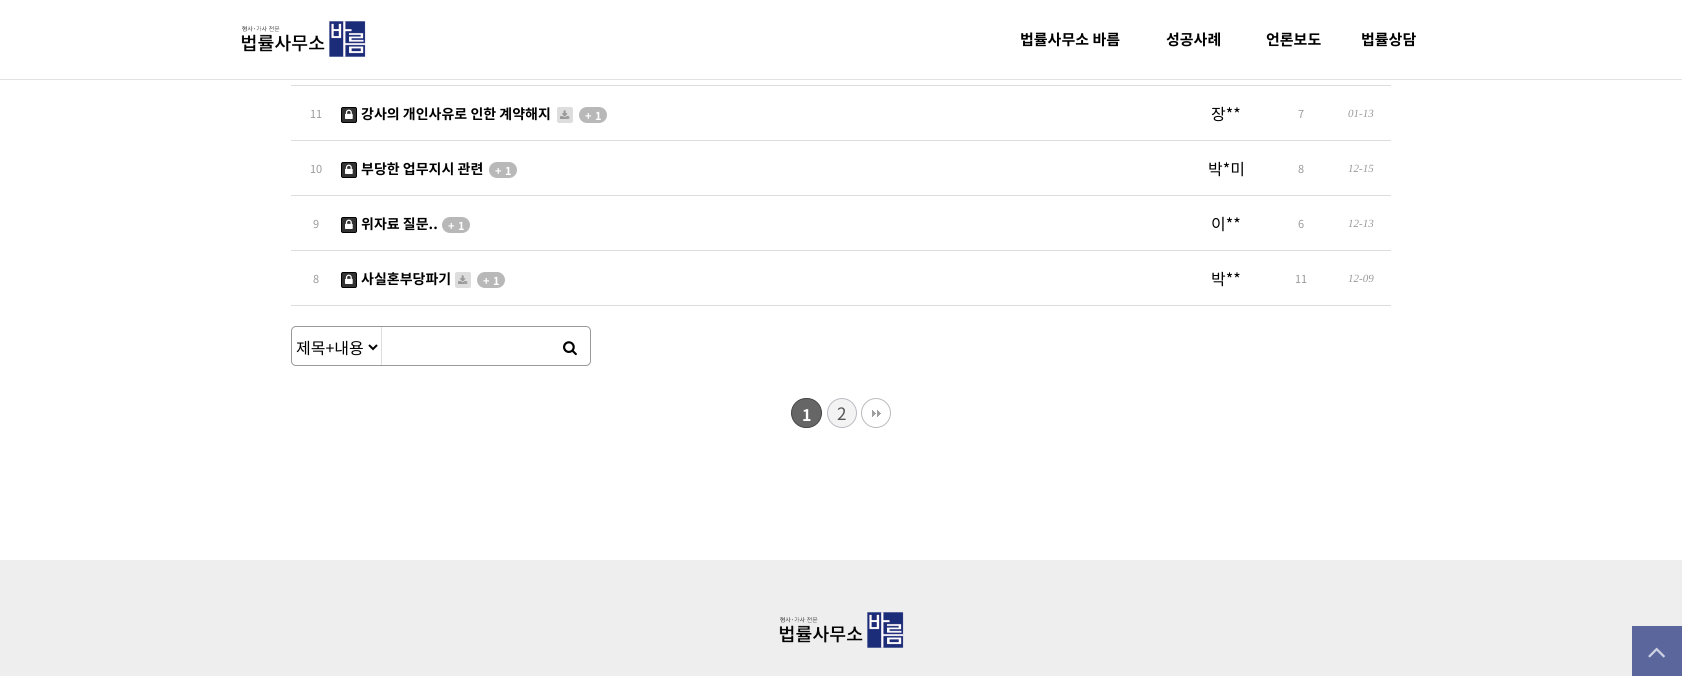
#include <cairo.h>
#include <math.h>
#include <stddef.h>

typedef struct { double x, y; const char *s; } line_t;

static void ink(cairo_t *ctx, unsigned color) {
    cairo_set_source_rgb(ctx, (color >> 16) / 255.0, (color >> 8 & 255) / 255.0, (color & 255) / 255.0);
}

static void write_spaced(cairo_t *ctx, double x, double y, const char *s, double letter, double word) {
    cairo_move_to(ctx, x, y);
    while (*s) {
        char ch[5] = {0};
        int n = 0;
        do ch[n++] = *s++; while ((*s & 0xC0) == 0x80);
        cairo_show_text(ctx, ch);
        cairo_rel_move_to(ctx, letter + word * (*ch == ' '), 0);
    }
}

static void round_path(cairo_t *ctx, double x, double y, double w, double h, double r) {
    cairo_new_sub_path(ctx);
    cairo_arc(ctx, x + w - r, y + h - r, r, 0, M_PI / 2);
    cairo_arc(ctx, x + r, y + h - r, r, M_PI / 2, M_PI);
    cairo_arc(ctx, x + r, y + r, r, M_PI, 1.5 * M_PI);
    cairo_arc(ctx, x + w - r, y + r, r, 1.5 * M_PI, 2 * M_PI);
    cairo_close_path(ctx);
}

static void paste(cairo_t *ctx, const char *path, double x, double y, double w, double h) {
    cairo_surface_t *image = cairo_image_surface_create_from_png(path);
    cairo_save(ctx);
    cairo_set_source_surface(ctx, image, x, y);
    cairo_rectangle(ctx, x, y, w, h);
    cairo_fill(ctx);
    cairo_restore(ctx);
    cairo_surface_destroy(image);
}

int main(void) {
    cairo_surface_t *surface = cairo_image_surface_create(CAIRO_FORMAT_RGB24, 1682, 676);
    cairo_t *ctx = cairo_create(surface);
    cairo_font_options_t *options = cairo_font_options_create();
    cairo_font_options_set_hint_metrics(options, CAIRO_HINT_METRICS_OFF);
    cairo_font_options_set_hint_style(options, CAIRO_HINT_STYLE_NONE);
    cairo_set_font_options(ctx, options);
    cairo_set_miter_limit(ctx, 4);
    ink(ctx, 0xFFFFFF);
    cairo_paint(ctx);
    ink(ctx, 0xE2E2E2);
    cairo_rectangle(ctx, 0, 79, 1682, 1);
    cairo_fill(ctx);
    paste(ctx, "media/1.png", 241, 21, 125, 36);
    cairo_select_font_face(ctx, "Noto Sans KR", CAIRO_FONT_SLANT_NORMAL, CAIRO_FONT_WEIGHT_BOLD);
    cairo_set_font_size(ctx, 15);
    ink(ctx, 0x000000);
    {
        static const line_t items[] = {
            {1020, 45, "법률사무소 바름"},
            {1166, 45, "성공사례"},
            {1266, 45, "언론보도"},
            {1361, 45, "법률상담"},
        };
        for (size_t i = 0; i < sizeof items / sizeof *items; i++) {
            cairo_move_to(ctx, items[i].x, items[i].y);
            cairo_show_text(ctx, items[i].s);
        }
    }
    ink(ctx, 0xDDDDDD);
    cairo_rectangle(ctx, 291, 85, 1100, 1);
    cairo_fill(ctx);
    cairo_rectangle(ctx, 291, 140, 1100, 1);
    cairo_fill(ctx);
    cairo_select_font_face(ctx, "Noto Sans KR", CAIRO_FONT_SLANT_NORMAL, CAIRO_FONT_WEIGHT_NORMAL);
    cairo_set_font_size(ctx, 11);
    ink(ctx, 0x999999);
    cairo_move_to(ctx, 310, 118);
    cairo_show_text(ctx, "11");
    ink(ctx, 0x333333);
    round_path(ctx, 341.5, 107.5, 15, 15, 1.5);
    cairo_fill_preserve(ctx);
    ink(ctx, 0x000000);
    cairo_set_line_width(ctx, 1);
    cairo_stroke(ctx);
    paste(ctx, "media/2.png", 345, 109, 8, 10);
    cairo_select_font_face(ctx, "Noto Sans KR", CAIRO_FONT_SLANT_NORMAL, CAIRO_FONT_WEIGHT_BOLD);
    cairo_set_font_size(ctx, 14);
    cairo_move_to(ctx, 361, 119);
    cairo_show_text(ctx, "강사의 개인사유로 인한 계약해지");
    ink(ctx, 0xDDDDDD);
    round_path(ctx, 557, 107, 16, 16, 2);
    cairo_fill(ctx);
    paste(ctx, "media/3.png", 560, 110, 10, 9);
    ink(ctx, 0xB8B8B8);
    round_path(ctx, 579, 107, 28, 16, 8);
    cairo_fill(ctx);
    cairo_set_font_size(ctx, 11);
    ink(ctx, 0xFFFFFF);
    write_spaced(ctx, 585, 120, "+ 1", 0, 1);
    cairo_select_font_face(ctx, "Noto Sans KR", CAIRO_FONT_SLANT_NORMAL, CAIRO_FONT_WEIGHT_NORMAL);
    cairo_set_font_size(ctx, 16);
    ink(ctx, 0x000000);
    cairo_move_to(ctx, 1211, 120);
    cairo_show_text(ctx, "장**");
    cairo_set_font_size(ctx, 11);
    ink(ctx, 0x999999);
    cairo_move_to(ctx, 1298, 118);
    cairo_show_text(ctx, "7");
    cairo_select_font_face(ctx, "Liberation Serif", CAIRO_FONT_SLANT_ITALIC, CAIRO_FONT_WEIGHT_NORMAL);
    cairo_move_to(ctx, 1348, 117);
    cairo_show_text(ctx, "01-13");
    ink(ctx, 0xDDDDDD);
    cairo_rectangle(ctx, 291, 195, 1100, 1);
    cairo_fill(ctx);
    cairo_select_font_face(ctx, "Noto Sans KR", CAIRO_FONT_SLANT_NORMAL, CAIRO_FONT_WEIGHT_NORMAL);
    ink(ctx, 0x999999);
    cairo_move_to(ctx, 310, 173);
    cairo_show_text(ctx, "10");
    ink(ctx, 0x333333);
    round_path(ctx, 341.5, 162.5, 15, 15, 1.5);
    cairo_fill_preserve(ctx);
    ink(ctx, 0x000000);
    cairo_stroke(ctx);
    paste(ctx, "media/2.png", 345, 164, 8, 10);
    cairo_select_font_face(ctx, "Noto Sans KR", CAIRO_FONT_SLANT_NORMAL, CAIRO_FONT_WEIGHT_BOLD);
    cairo_set_font_size(ctx, 14);
    cairo_move_to(ctx, 361, 174);
    cairo_show_text(ctx, "부당한 업무지시 관련");
    ink(ctx, 0xB8B8B8);
    round_path(ctx, 489, 162, 28, 16, 8);
    cairo_fill(ctx);
    cairo_set_font_size(ctx, 11);
    ink(ctx, 0xFFFFFF);
    write_spaced(ctx, 495, 175, "+ 1", 0, 1);
    cairo_select_font_face(ctx, "Noto Sans KR", CAIRO_FONT_SLANT_NORMAL, CAIRO_FONT_WEIGHT_NORMAL);
    cairo_set_font_size(ctx, 16);
    ink(ctx, 0x000000);
    cairo_move_to(ctx, 1208, 175);
    cairo_show_text(ctx, "박*미");
    cairo_set_font_size(ctx, 11);
    ink(ctx, 0x999999);
    cairo_move_to(ctx, 1298, 173);
    cairo_show_text(ctx, "8");
    cairo_select_font_face(ctx, "Liberation Serif", CAIRO_FONT_SLANT_ITALIC, CAIRO_FONT_WEIGHT_NORMAL);
    cairo_move_to(ctx, 1348, 172);
    cairo_show_text(ctx, "12-15");
    ink(ctx, 0xDDDDDD);
    cairo_rectangle(ctx, 291, 250, 1100, 1);
    cairo_fill(ctx);
    cairo_select_font_face(ctx, "Noto Sans KR", CAIRO_FONT_SLANT_NORMAL, CAIRO_FONT_WEIGHT_NORMAL);
    ink(ctx, 0x999999);
    cairo_move_to(ctx, 313, 228);
    cairo_show_text(ctx, "9");
    ink(ctx, 0x333333);
    round_path(ctx, 341.5, 217.5, 15, 15, 1.5);
    cairo_fill_preserve(ctx);
    ink(ctx, 0x000000);
    cairo_stroke(ctx);
    paste(ctx, "media/2.png", 345, 219, 8, 10);
    cairo_select_font_face(ctx, "Noto Sans KR", CAIRO_FONT_SLANT_NORMAL, CAIRO_FONT_WEIGHT_BOLD);
    cairo_set_font_size(ctx, 14);
    cairo_move_to(ctx, 361, 229);
    cairo_show_text(ctx, "위자료 질문..");
    ink(ctx, 0xB8B8B8);
    round_path(ctx, 442, 217, 28, 16, 8);
    cairo_fill(ctx);
    cairo_set_font_size(ctx, 11);
    ink(ctx, 0xFFFFFF);
    write_spaced(ctx, 448, 230, "+ 1", 0, 1);
    cairo_select_font_face(ctx, "Noto Sans KR", CAIRO_FONT_SLANT_NORMAL, CAIRO_FONT_WEIGHT_NORMAL);
    cairo_set_font_size(ctx, 16);
    ink(ctx, 0x000000);
    cairo_move_to(ctx, 1211, 230);
    cairo_show_text(ctx, "이**");
    cairo_set_font_size(ctx, 11);
    ink(ctx, 0x999999);
    cairo_move_to(ctx, 1298, 228);
    cairo_show_text(ctx, "6");
    cairo_select_font_face(ctx, "Liberation Serif", CAIRO_FONT_SLANT_ITALIC, CAIRO_FONT_WEIGHT_NORMAL);
    cairo_move_to(ctx, 1348, 227);
    cairo_show_text(ctx, "12-13");
    ink(ctx, 0xDDDDDD);
    cairo_rectangle(ctx, 291, 305, 1100, 1);
    cairo_fill(ctx);
    cairo_select_font_face(ctx, "Noto Sans KR", CAIRO_FONT_SLANT_NORMAL, CAIRO_FONT_WEIGHT_NORMAL);
    ink(ctx, 0x999999);
    cairo_move_to(ctx, 313, 283);
    cairo_show_text(ctx, "8");
    ink(ctx, 0x333333);
    round_path(ctx, 341.5, 272.5, 15, 15, 1.5);
    cairo_fill_preserve(ctx);
    ink(ctx, 0x000000);
    cairo_stroke(ctx);
    paste(ctx, "media/2.png", 345, 274, 8, 10);
    cairo_select_font_face(ctx, "Noto Sans KR", CAIRO_FONT_SLANT_NORMAL, CAIRO_FONT_WEIGHT_BOLD);
    cairo_set_font_size(ctx, 14);
    cairo_move_to(ctx, 361, 284);
    cairo_show_text(ctx, "사실혼부당파기");
    ink(ctx, 0xDDDDDD);
    round_path(ctx, 455, 272, 16, 16, 2);
    cairo_fill(ctx);
    paste(ctx, "media/3.png", 458, 275, 10, 9);
    ink(ctx, 0xB8B8B8);
    round_path(ctx, 477, 272, 28, 16, 8);
    cairo_fill(ctx);
    cairo_set_font_size(ctx, 11);
    ink(ctx, 0xFFFFFF);
    write_spaced(ctx, 483, 285, "+ 1", 0, 1);
    cairo_select_font_face(ctx, "Noto Sans KR", CAIRO_FONT_SLANT_NORMAL, CAIRO_FONT_WEIGHT_NORMAL);
    cairo_set_font_size(ctx, 16);
    ink(ctx, 0x000000);
    cairo_move_to(ctx, 1211, 285);
    cairo_show_text(ctx, "박**");
    cairo_set_font_size(ctx, 11);
    ink(ctx, 0x999999);
    cairo_move_to(ctx, 1295, 283);
    cairo_show_text(ctx, "11");
    cairo_select_font_face(ctx, "Liberation Serif", CAIRO_FONT_SLANT_ITALIC, CAIRO_FONT_WEIGHT_NORMAL);
    cairo_move_to(ctx, 1348, 282);
    cairo_show_text(ctx, "12-09");
    round_path(ctx, 291.5, 326.5, 299, 39, 4.5);
    cairo_stroke(ctx);
    ink(ctx, 0xDDDDDD);
    cairo_rectangle(ctx, 381, 327, 1, 38);
    cairo_fill(ctx);
    cairo_new_path(ctx);
    cairo_move_to(ctx, 369, 345);
    cairo_line_to(ctx, 373, 349);
    cairo_line_to(ctx, 377, 345);
    ink(ctx, 0x000000);
    cairo_set_line_width(ctx, 2);
    cairo_stroke(ctx);
    cairo_select_font_face(ctx, "Noto Sans KR", CAIRO_FONT_SLANT_NORMAL, CAIRO_FONT_WEIGHT_NORMAL);
    cairo_set_font_size(ctx, 16);
    cairo_move_to(ctx, 296, 354);
    cairo_show_text(ctx, "제목+내용");
    paste(ctx, "media/4.png", 563, 341, 14, 15);
    ink(ctx, 0x666666);
    round_path(ctx, 791.5, 398.5, 30, 29, 14.5);
    cairo_fill_preserve(ctx);
    ink(ctx, 0x444444);
    cairo_set_line_width(ctx, 1);
    cairo_stroke(ctx);
    cairo_select_font_face(ctx, "Noto Sans KR", CAIRO_FONT_SLANT_NORMAL, CAIRO_FONT_WEIGHT_BOLD);
    ink(ctx, 0xFFFFFF);
    cairo_move_to(ctx, 802, 421);
    cairo_show_text(ctx, "1");
    ink(ctx, 0xF3F3F3);
    cairo_new_path(ctx);
    cairo_arc(ctx, 842, 413, 14.5, 0, 2 * M_PI);
    cairo_fill_preserve(ctx);
    ink(ctx, 0xBBBCC3);
    cairo_stroke(ctx);
    cairo_select_font_face(ctx, "Noto Sans KR", CAIRO_FONT_SLANT_NORMAL, CAIRO_FONT_WEIGHT_NORMAL);
    cairo_set_font_size(ctx, 17);
    ink(ctx, 0x555555);
    cairo_move_to(ctx, 837, 420);
    cairo_show_text(ctx, "2");
    paste(ctx, "media/5.png", 872, 410, 9, 7);
    cairo_arc(ctx, 876, 413, 14.5, 0, 2 * M_PI);
    ink(ctx, 0xBBBBBB);
    cairo_stroke(ctx);
    ink(ctx, 0xEEEEEE);
    cairo_rectangle(ctx, 0, 560, 1682, 116);
    cairo_fill(ctx);
    paste(ctx, "media/6.png", 779, 612, 125, 36);
    ink(ctx, 0x5A669C);
    cairo_rectangle(ctx, 1632, 626, 50, 50);
    cairo_fill(ctx);
    paste(ctx, "media/7.png", 1648, 647, 17, 11);
    cairo_surface_write_to_png(surface, "image.png");
    cairo_font_options_destroy(options);
    cairo_destroy(ctx);
    cairo_surface_destroy(surface);
    return 0;
}
